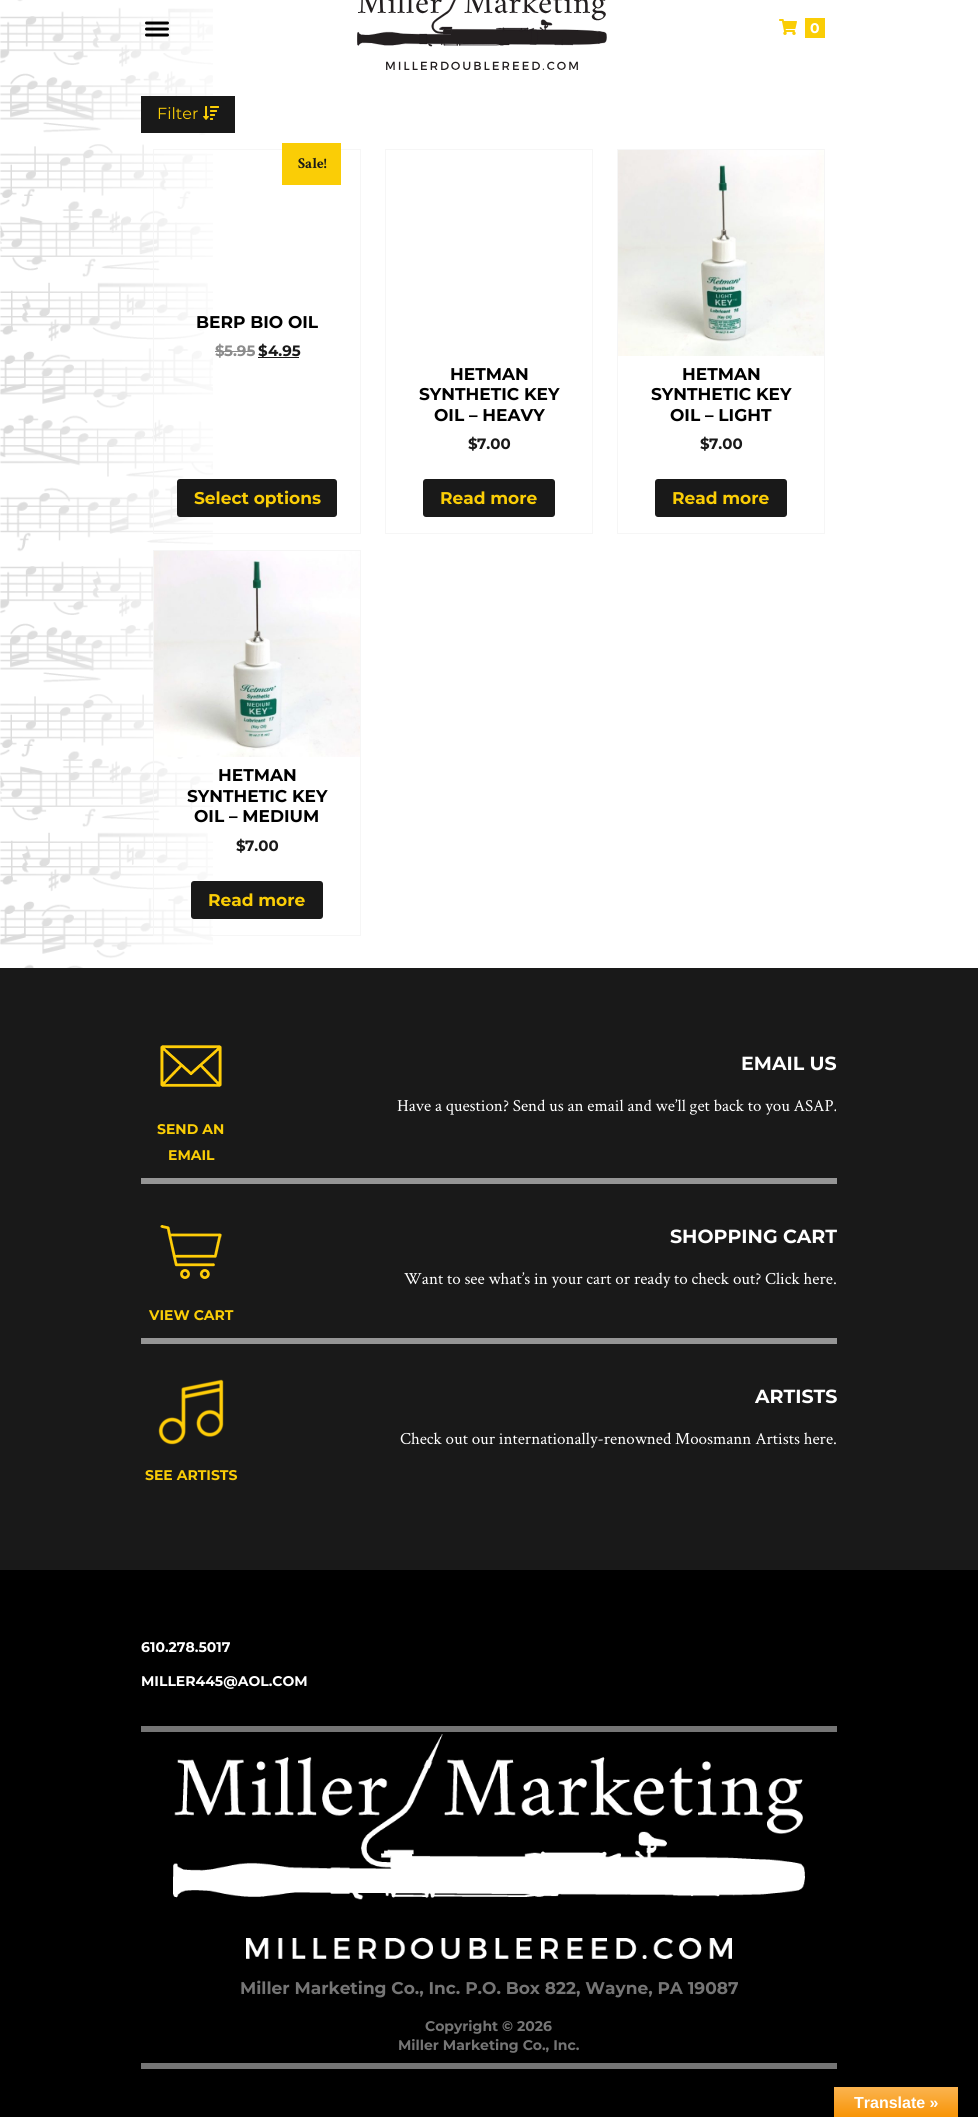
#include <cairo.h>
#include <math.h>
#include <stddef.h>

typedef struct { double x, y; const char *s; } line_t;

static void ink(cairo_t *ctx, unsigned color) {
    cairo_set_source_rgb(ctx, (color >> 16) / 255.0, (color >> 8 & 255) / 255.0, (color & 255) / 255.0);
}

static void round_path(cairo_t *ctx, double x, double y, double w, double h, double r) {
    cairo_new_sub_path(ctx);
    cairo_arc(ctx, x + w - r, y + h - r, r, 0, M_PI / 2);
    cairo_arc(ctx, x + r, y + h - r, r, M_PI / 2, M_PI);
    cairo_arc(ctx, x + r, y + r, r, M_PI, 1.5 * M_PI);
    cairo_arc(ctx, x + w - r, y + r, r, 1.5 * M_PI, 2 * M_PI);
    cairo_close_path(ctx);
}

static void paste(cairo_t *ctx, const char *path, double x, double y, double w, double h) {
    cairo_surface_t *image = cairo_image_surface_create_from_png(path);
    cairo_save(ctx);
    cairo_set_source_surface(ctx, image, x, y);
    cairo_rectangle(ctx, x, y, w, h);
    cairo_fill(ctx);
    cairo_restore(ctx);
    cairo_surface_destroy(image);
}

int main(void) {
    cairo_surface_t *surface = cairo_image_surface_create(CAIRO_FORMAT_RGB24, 978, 2117);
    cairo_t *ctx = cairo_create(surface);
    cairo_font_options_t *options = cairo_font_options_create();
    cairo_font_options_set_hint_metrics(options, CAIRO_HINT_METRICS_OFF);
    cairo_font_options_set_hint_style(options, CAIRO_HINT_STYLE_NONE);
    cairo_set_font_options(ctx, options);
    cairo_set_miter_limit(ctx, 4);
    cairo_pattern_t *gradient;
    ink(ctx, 0xFFFFFF);
    cairo_paint(ctx);
    paste(ctx, "media/1.png", 0, 0, 213, 968);
    cairo_new_path(ctx);
    cairo_move_to(ctx, 146.5, 23);
    cairo_line_to(ctx, 167.5, 23);
    cairo_move_to(ctx, 146.5, 29);
    cairo_line_to(ctx, 167.5, 29);
    cairo_move_to(ctx, 146.5, 35);
    cairo_line_to(ctx, 167.5, 35);
    ink(ctx, 0x000000);
    cairo_set_line_width(ctx, 3);
    cairo_set_line_cap(ctx, CAIRO_LINE_CAP_ROUND);
    cairo_stroke(ctx);
    paste(ctx, "media/2.png", 357, 0, 250, 70);
    paste(ctx, "media/3.png", 779, 19, 18, 16);
    ink(ctx, 0xFACD06);
    cairo_rectangle(ctx, 805, 18, 20, 20);
    cairo_fill(ctx);
    cairo_select_font_face(ctx, "Montserrat", CAIRO_FONT_SLANT_NORMAL, CAIRO_FONT_WEIGHT_BOLD);
    cairo_set_font_size(ctx, 14);
    ink(ctx, 0xFFFFFF);
    cairo_move_to(ctx, 810, 33);
    cairo_show_text(ctx, "0");
    ink(ctx, 0x191919);
    cairo_rectangle(ctx, 141, 96, 94, 37);
    cairo_fill(ctx);
    cairo_select_font_face(ctx, "Montserrat", CAIRO_FONT_SLANT_NORMAL, CAIRO_FONT_WEIGHT_NORMAL);
    cairo_set_font_size(ctx, 16);
    ink(ctx, 0xFACD06);
    cairo_move_to(ctx, 157, 119);
    cairo_show_text(ctx, "Filter");
    paste(ctx, "media/4.png", 203, 106, 16, 14);
    cairo_rectangle(ctx, 153.5, 149.5, 207, 384);
    ink(ctx, 0xF6F6F6);
    cairo_set_line_width(ctx, 1);
    cairo_set_line_cap(ctx, CAIRO_LINE_CAP_BUTT);
    cairo_stroke(ctx);
    ink(ctx, 0xFACD06);
    cairo_rectangle(ctx, 282, 143, 59, 42);
    cairo_fill(ctx);
    cairo_select_font_face(ctx, "Crimson Text", CAIRO_FONT_SLANT_NORMAL, CAIRO_FONT_WEIGHT_BOLD);
    cairo_set_font_size(ctx, 15);
    ink(ctx, 0x191919);
    cairo_move_to(ctx, 298, 168);
    cairo_show_text(ctx, "Sale!");
    cairo_select_font_face(ctx, "Montserrat", CAIRO_FONT_SLANT_NORMAL, CAIRO_FONT_WEIGHT_BOLD);
    cairo_set_font_size(ctx, 17);
    ink(ctx, 0x000000);
    cairo_move_to(ctx, 196, 328);
    cairo_show_text(ctx, "BERP BIO OIL");
    cairo_set_font_size(ctx, 15);
    ink(ctx, 0x8C8C8C);
    cairo_move_to(ctx, 215, 356);
    cairo_show_text(ctx, "$");
    cairo_move_to(ctx, 224, 356);
    cairo_show_text(ctx, "5.95");
    cairo_rectangle(ctx, 224, 351, 30, 1);
    cairo_fill(ctx);
    cairo_rectangle(ctx, 215, 351, 9, 1);
    cairo_fill(ctx);
    ink(ctx, 0x191919);
    cairo_move_to(ctx, 268, 356);
    cairo_show_text(ctx, "4.95");
    cairo_rectangle(ctx, 258, 357, 41, 1);
    cairo_fill(ctx);
    cairo_move_to(ctx, 258, 356);
    cairo_show_text(ctx, "$");
    round_path(ctx, 177, 479, 160, 38, 3);
    cairo_fill(ctx);
    cairo_set_font_size(ctx, 17);
    ink(ctx, 0xFACD06);
    cairo_move_to(ctx, 194, 504);
    cairo_show_text(ctx, "Select options");
    cairo_rectangle(ctx, 385.5, 149.5, 207, 384);
    ink(ctx, 0xF6F6F6);
    cairo_stroke(ctx);
    ink(ctx, 0x000000);
    {
        static const line_t items[] = {
            {450, 380, "HETMAN"},
            {419, 400, "SYNTHETIC KEY"},
            {434, 421, "OIL – HEAVY"},
        };
        for (size_t i = 0; i < sizeof items / sizeof *items; i++) {
            cairo_move_to(ctx, items[i].x, items[i].y);
            cairo_show_text(ctx, items[i].s);
        }
    }
    cairo_set_font_size(ctx, 15);
    ink(ctx, 0x191919);
    cairo_move_to(ctx, 468, 449);
    cairo_show_text(ctx, "$");
    cairo_move_to(ctx, 477, 449);
    cairo_show_text(ctx, "7.00");
    round_path(ctx, 423, 479, 132, 38, 3);
    cairo_fill(ctx);
    cairo_set_font_size(ctx, 17);
    ink(ctx, 0xFACD06);
    cairo_move_to(ctx, 440, 504);
    cairo_show_text(ctx, "Read more");
    cairo_rectangle(ctx, 617.5, 149.5, 207, 384);
    ink(ctx, 0xF6F6F6);
    cairo_stroke(ctx);
    paste(ctx, "media/5.png", 618, 150, 206, 206);
    ink(ctx, 0x000000);
    {
        static const line_t items[] = {
            {682, 380, "HETMAN"},
            {651, 400, "SYNTHETIC KEY"},
            {670, 421, "OIL – LIGHT"},
        };
        for (size_t i = 0; i < sizeof items / sizeof *items; i++) {
            cairo_move_to(ctx, items[i].x, items[i].y);
            cairo_show_text(ctx, items[i].s);
        }
    }
    cairo_set_font_size(ctx, 15);
    ink(ctx, 0x191919);
    cairo_move_to(ctx, 700, 449);
    cairo_show_text(ctx, "$");
    cairo_move_to(ctx, 709, 449);
    cairo_show_text(ctx, "7.00");
    round_path(ctx, 655, 479, 132, 38, 3);
    cairo_fill(ctx);
    cairo_set_font_size(ctx, 17);
    ink(ctx, 0xFACD06);
    cairo_move_to(ctx, 672, 504);
    cairo_show_text(ctx, "Read more");
    cairo_rectangle(ctx, 153.5, 550.5, 207, 385);
    ink(ctx, 0xF6F6F6);
    cairo_stroke(ctx);
    paste(ctx, "media/6.png", 154, 551, 206, 206);
    ink(ctx, 0x000000);
    {
        static const line_t items[] = {
            {218, 781, "HETMAN"},
            {187, 802, "SYNTHETIC KEY"},
            {194, 822, "OIL – MEDIUM"},
        };
        for (size_t i = 0; i < sizeof items / sizeof *items; i++) {
            cairo_move_to(ctx, items[i].x, items[i].y);
            cairo_show_text(ctx, items[i].s);
        }
    }
    cairo_set_font_size(ctx, 15);
    ink(ctx, 0x191919);
    cairo_move_to(ctx, 236, 851);
    cairo_show_text(ctx, "$");
    cairo_move_to(ctx, 245, 851);
    cairo_show_text(ctx, "7.00");
    round_path(ctx, 191, 881, 132, 38, 3);
    cairo_fill(ctx);
    cairo_set_font_size(ctx, 17);
    ink(ctx, 0xFACD06);
    cairo_move_to(ctx, 208, 906);
    cairo_show_text(ctx, "Read more");
    ink(ctx, 0x191919);
    cairo_rectangle(ctx, 0, 968, 978, 602);
    cairo_fill(ctx);
    cairo_set_font_size(ctx, 19);
    ink(ctx, 0xFFFFFF);
    cairo_move_to(ctx, 741, 1070);
    cairo_show_text(ctx, "EMAIL US");
    cairo_select_font_face(ctx, "Crimson Text", CAIRO_FONT_SLANT_NORMAL, CAIRO_FONT_WEIGHT_NORMAL);
    cairo_set_font_size(ctx, 17);
    cairo_move_to(ctx, 397, 1111);
    cairo_show_text(ctx, "Have a question? Send us an email and we’ll get back to you ASAP.");
    paste(ctx, "media/7.png", 160, 1045, 62, 42);
    cairo_select_font_face(ctx, "Montserrat", CAIRO_FONT_SLANT_NORMAL, CAIRO_FONT_WEIGHT_BOLD);
    cairo_set_font_size(ctx, 14);
    ink(ctx, 0xFACD06);
    cairo_move_to(ctx, 157, 1134);
    cairo_show_text(ctx, "SEND AN");
    cairo_move_to(ctx, 168, 1160);
    cairo_show_text(ctx, "EMAIL");
    ink(ctx, 0x959595);
    cairo_rectangle(ctx, 141, 1178, 696, 6);
    cairo_fill(ctx);
    cairo_set_font_size(ctx, 19);
    ink(ctx, 0xFFFFFF);
    cairo_move_to(ctx, 670, 1243);
    cairo_show_text(ctx, "SHOPPING CART");
    cairo_select_font_face(ctx, "Crimson Text", CAIRO_FONT_SLANT_NORMAL, CAIRO_FONT_WEIGHT_NORMAL);
    cairo_set_font_size(ctx, 17);
    cairo_move_to(ctx, 404, 1284);
    cairo_show_text(ctx, "Want to see what’s in your cart or ready to check out? Click here.");
    paste(ctx, "media/8.png", 160, 1225, 62, 54);
    cairo_select_font_face(ctx, "Montserrat", CAIRO_FONT_SLANT_NORMAL, CAIRO_FONT_WEIGHT_BOLD);
    cairo_set_font_size(ctx, 14);
    ink(ctx, 0xFACD06);
    cairo_move_to(ctx, 149, 1320);
    cairo_show_text(ctx, "VIEW CART");
    ink(ctx, 0x959595);
    cairo_rectangle(ctx, 141, 1338, 696, 6);
    cairo_fill(ctx);
    cairo_set_font_size(ctx, 19);
    ink(ctx, 0xFFFFFF);
    cairo_move_to(ctx, 755, 1403);
    cairo_show_text(ctx, "ARTISTS");
    cairo_select_font_face(ctx, "Crimson Text", CAIRO_FONT_SLANT_NORMAL, CAIRO_FONT_WEIGHT_NORMAL);
    cairo_set_font_size(ctx, 17);
    cairo_move_to(ctx, 400, 1444);
    cairo_show_text(ctx, "Check out our internationally-renowned Moosmann Artists here.");
    paste(ctx, "media/9.png", 158, 1379, 66, 66);
    cairo_select_font_face(ctx, "Montserrat", CAIRO_FONT_SLANT_NORMAL, CAIRO_FONT_WEIGHT_BOLD);
    cairo_set_font_size(ctx, 14);
    ink(ctx, 0xFACD06);
    cairo_move_to(ctx, 145, 1480);
    cairo_show_text(ctx, "SEE ARTISTS");
    ink(ctx, 0x000000);
    cairo_rectangle(ctx, 0, 1570, 978, 547);
    cairo_fill(ctx);
    ink(ctx, 0xFFFFFF);
    cairo_move_to(ctx, 141, 1652);
    cairo_show_text(ctx, "610.278.5017");
    cairo_move_to(ctx, 141, 1686);
    cairo_show_text(ctx, "MILLER445@AOL.COM");
    ink(ctx, 0x757575);
    cairo_rectangle(ctx, 141, 1726, 696, 6);
    cairo_fill(ctx);
    paste(ctx, "media/10.png", 173, 1734, 632, 225);
    cairo_set_font_size(ctx, 17);
    cairo_move_to(ctx, 240, 1994);
    cairo_show_text(ctx, "Miller Marketing Co., Inc. P.O. Box 822, Wayne, PA 19087");
    cairo_set_font_size(ctx, 14);
    cairo_move_to(ctx, 425, 2031);
    cairo_show_text(ctx, "Copyright © 2026");
    cairo_move_to(ctx, 398, 2050);
    cairo_show_text(ctx, "Miller Marketing Co., Inc.");
    cairo_rectangle(ctx, 141, 2063, 696, 6);
    cairo_fill(ctx);
    gradient = cairo_pattern_create_linear(896, 2087, 896, 2117);
    cairo_pattern_add_color_stop_rgba(gradient, 0, 0.984, 0.706, 0.314, 1);
    cairo_pattern_add_color_stop_rgba(gradient, 1, 0.973, 0.58, 0.024, 1);
    cairo_set_source(ctx, gradient);
    cairo_pattern_destroy(gradient);
    cairo_rectangle(ctx, 834, 2087, 124, 30);
    cairo_fill(ctx);
    cairo_select_font_face(ctx, "Liberation Sans", CAIRO_FONT_SLANT_NORMAL, CAIRO_FONT_WEIGHT_BOLD);
    cairo_set_font_size(ctx, 16);
    ink(ctx, 0xFFFFFF);
    cairo_move_to(ctx, 854, 2108);
    cairo_show_text(ctx, "Translate »");
    cairo_surface_write_to_png(surface, "image.png");
    cairo_font_options_destroy(options);
    cairo_destroy(ctx);
    cairo_surface_destroy(surface);
    return 0;
}
